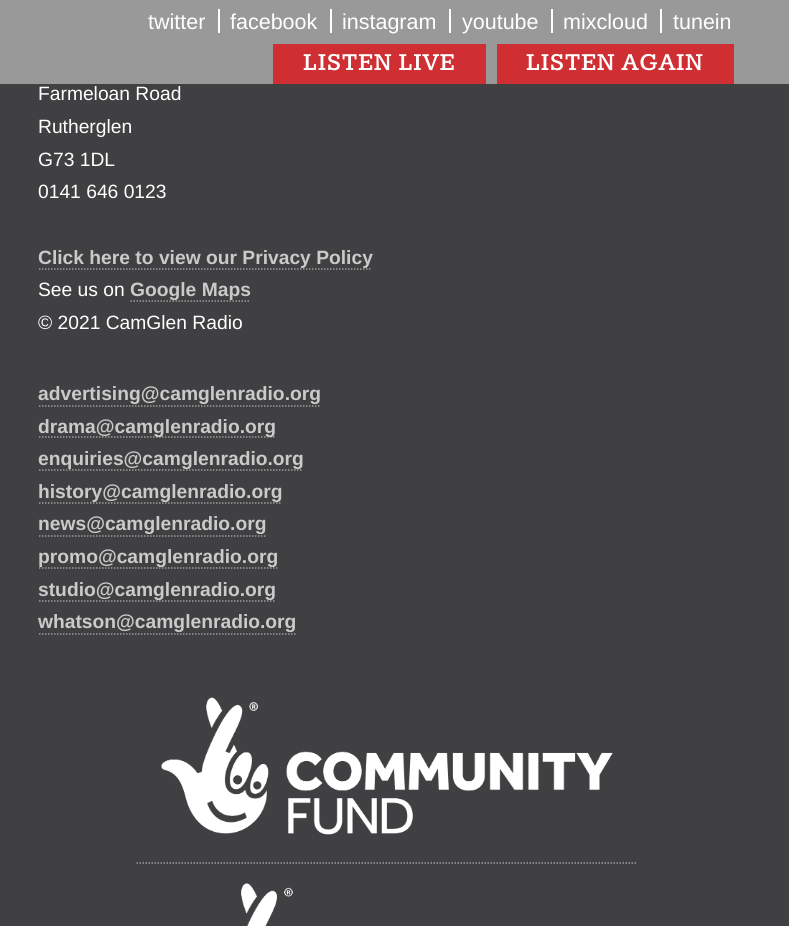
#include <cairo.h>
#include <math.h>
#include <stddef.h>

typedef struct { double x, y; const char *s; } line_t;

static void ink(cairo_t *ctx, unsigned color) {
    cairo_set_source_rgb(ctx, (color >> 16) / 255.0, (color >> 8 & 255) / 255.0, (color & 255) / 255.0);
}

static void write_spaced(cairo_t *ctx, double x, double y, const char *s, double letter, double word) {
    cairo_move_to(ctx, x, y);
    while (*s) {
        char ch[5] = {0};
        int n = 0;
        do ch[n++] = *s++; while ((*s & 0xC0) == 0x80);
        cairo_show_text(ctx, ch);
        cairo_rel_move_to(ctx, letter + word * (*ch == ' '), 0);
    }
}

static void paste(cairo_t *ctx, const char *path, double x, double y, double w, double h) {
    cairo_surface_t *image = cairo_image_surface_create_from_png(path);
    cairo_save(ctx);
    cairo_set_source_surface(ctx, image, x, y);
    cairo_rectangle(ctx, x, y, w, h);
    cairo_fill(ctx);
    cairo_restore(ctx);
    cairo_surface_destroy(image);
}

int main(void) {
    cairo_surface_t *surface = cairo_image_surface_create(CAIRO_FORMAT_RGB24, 789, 926);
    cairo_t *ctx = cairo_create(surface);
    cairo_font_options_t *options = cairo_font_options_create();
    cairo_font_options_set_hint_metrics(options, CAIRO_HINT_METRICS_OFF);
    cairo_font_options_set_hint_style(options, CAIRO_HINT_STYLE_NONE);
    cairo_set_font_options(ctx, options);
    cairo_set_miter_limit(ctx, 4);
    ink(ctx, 0x404042);
    cairo_paint(ctx);
    ink(ctx, 0x999999);
    cairo_rectangle(ctx, 0, 0, 789, 84);
    cairo_fill(ctx);
    cairo_select_font_face(ctx, "Liberation Sans", CAIRO_FONT_SLANT_NORMAL, CAIRO_FONT_WEIGHT_NORMAL);
    cairo_set_font_size(ctx, 21.5);
    ink(ctx, 0xFFFFFF);
    cairo_move_to(ctx, 148, 29);
    cairo_show_text(ctx, "twitter");
    cairo_rectangle(ctx, 218, 9, 2, 24);
    cairo_fill(ctx);
    cairo_move_to(ctx, 230, 29);
    cairo_show_text(ctx, "facebook");
    cairo_rectangle(ctx, 330, 9, 2, 24);
    cairo_fill(ctx);
    cairo_move_to(ctx, 342, 29);
    cairo_show_text(ctx, "instagram");
    cairo_rectangle(ctx, 449, 9, 2, 24);
    cairo_fill(ctx);
    cairo_move_to(ctx, 462, 29);
    cairo_show_text(ctx, "youtube");
    cairo_rectangle(ctx, 551, 9, 2, 24);
    cairo_fill(ctx);
    cairo_move_to(ctx, 563, 29);
    cairo_show_text(ctx, "mixcloud");
    cairo_rectangle(ctx, 660, 9, 2, 24);
    cairo_fill(ctx);
    cairo_move_to(ctx, 673, 29);
    cairo_show_text(ctx, "tunein");
    ink(ctx, 0xCF2E33);
    cairo_rectangle(ctx, 273, 44, 213, 40);
    cairo_fill(ctx);
    cairo_select_font_face(ctx, "Kameron", CAIRO_FONT_SLANT_NORMAL, CAIRO_FONT_WEIGHT_BOLD);
    cairo_set_font_size(ctx, 24);
    ink(ctx, 0xFFFFFF);
    write_spaced(ctx, 303, 70, "LISTEN LIVE", 1.5, 0);
    ink(ctx, 0xCF2E33);
    cairo_rectangle(ctx, 497, 44, 237, 40);
    cairo_fill(ctx);
    ink(ctx, 0xFFFFFF);
    write_spaced(ctx, 526, 70, "LISTEN AGAIN", 1.5, 0);
    cairo_select_font_face(ctx, "Liberation Sans", CAIRO_FONT_SLANT_NORMAL, CAIRO_FONT_WEIGHT_NORMAL);
    cairo_set_font_size(ctx, 19.25);
    {
        static const line_t items[] = {
            {38, 100, "Farmeloan Road"},
            {38, 133, "Rutherglen"},
            {38, 166, "G73 1DL"},
            {38, 198, "0141 646 0123"},
        };
        for (size_t i = 0; i < sizeof items / sizeof *items; i++) {
            cairo_move_to(ctx, items[i].x, items[i].y);
            cairo_show_text(ctx, items[i].s);
        }
    }
    cairo_select_font_face(ctx, "Liberation Sans", CAIRO_FONT_SLANT_NORMAL, CAIRO_FONT_WEIGHT_BOLD);
    ink(ctx, 0xCBCACA);
    cairo_move_to(ctx, 38, 264);
    cairo_show_text(ctx, "Click here to view our Privacy Policy");
    cairo_new_path(ctx);
    cairo_move_to(ctx, 39, 269);
    cairo_line_to(ctx, 372, 269);
    ink(ctx, 0x9C9A9A);
    cairo_set_line_width(ctx, 1.5);
    cairo_set_dash(ctx, (double[]){1.5, 1.5}, 2, 0);
    cairo_stroke(ctx);
    cairo_select_font_face(ctx, "Liberation Sans", CAIRO_FONT_SLANT_NORMAL, CAIRO_FONT_WEIGHT_NORMAL);
    ink(ctx, 0xFFFFFF);
    cairo_move_to(ctx, 38, 296);
    cairo_show_text(ctx, "See us on");
    cairo_new_path(ctx);
    cairo_move_to(ctx, 130.5, 301);
    cairo_line_to(ctx, 250.5, 301);
    ink(ctx, 0x9C9A9A);
    cairo_stroke(ctx);
    cairo_select_font_face(ctx, "Liberation Sans", CAIRO_FONT_SLANT_NORMAL, CAIRO_FONT_WEIGHT_BOLD);
    ink(ctx, 0xCBCACA);
    cairo_move_to(ctx, 130, 296);
    cairo_show_text(ctx, "Google Maps");
    cairo_select_font_face(ctx, "Liberation Sans", CAIRO_FONT_SLANT_NORMAL, CAIRO_FONT_WEIGHT_NORMAL);
    ink(ctx, 0xFFFFFF);
    cairo_move_to(ctx, 38, 329);
    cairo_show_text(ctx, "© 2021 CamGlen Radio");
    cairo_select_font_face(ctx, "Liberation Sans", CAIRO_FONT_SLANT_NORMAL, CAIRO_FONT_WEIGHT_BOLD);
    ink(ctx, 0xCBCACA);
    cairo_move_to(ctx, 38, 400);
    cairo_show_text(ctx, "advertising@camglenradio.org");
    cairo_new_path(ctx);
    cairo_move_to(ctx, 39, 406);
    cairo_line_to(ctx, 321, 406);
    ink(ctx, 0x9C9A9A);
    cairo_stroke(ctx);
    cairo_new_path(ctx);
    cairo_move_to(ctx, 39, 437);
    cairo_line_to(ctx, 276, 437);
    cairo_stroke(ctx);
    ink(ctx, 0xCBCACA);
    cairo_move_to(ctx, 38, 433);
    cairo_show_text(ctx, "drama@camglenradio.org");
    cairo_new_path(ctx);
    cairo_move_to(ctx, 39, 470);
    cairo_line_to(ctx, 303, 470);
    ink(ctx, 0x9C9A9A);
    cairo_stroke(ctx);
    ink(ctx, 0xCBCACA);
    cairo_move_to(ctx, 38, 465);
    cairo_show_text(ctx, "enquiries@camglenradio.org");
    cairo_new_path(ctx);
    cairo_move_to(ctx, 39, 503);
    cairo_line_to(ctx, 282, 503);
    ink(ctx, 0x9C9A9A);
    cairo_stroke(ctx);
    ink(ctx, 0xCBCACA);
    cairo_move_to(ctx, 38, 498);
    cairo_show_text(ctx, "history@camglenradio.org");
    cairo_move_to(ctx, 38, 530);
    cairo_show_text(ctx, "news@camglenradio.org");
    cairo_new_path(ctx);
    cairo_move_to(ctx, 39, 536);
    cairo_line_to(ctx, 265.5, 536);
    ink(ctx, 0x9C9A9A);
    cairo_stroke(ctx);
    cairo_new_path(ctx);
    cairo_move_to(ctx, 39, 568);
    cairo_line_to(ctx, 277.5, 568);
    cairo_stroke(ctx);
    ink(ctx, 0xCBCACA);
    cairo_move_to(ctx, 38, 563);
    cairo_show_text(ctx, "promo@camglenradio.org");
    cairo_new_path(ctx);
    cairo_move_to(ctx, 39, 601);
    cairo_line_to(ctx, 276, 601);
    ink(ctx, 0x9C9A9A);
    cairo_stroke(ctx);
    ink(ctx, 0xCBCACA);
    cairo_move_to(ctx, 38, 596);
    cairo_show_text(ctx, "studio@camglenradio.org");
    cairo_move_to(ctx, 38, 628);
    cairo_show_text(ctx, "whatson@camglenradio.org");
    cairo_new_path(ctx);
    cairo_move_to(ctx, 39, 634);
    cairo_line_to(ctx, 295.5, 634);
    ink(ctx, 0x9C9A9A);
    cairo_stroke(ctx);
    paste(ctx, "media/1.png", 161, 697, 452, 138);
    cairo_new_path(ctx);
    cairo_move_to(ctx, 136.5, 863);
    cairo_line_to(ctx, 637.5, 863);
    cairo_stroke(ctx);
    paste(ctx, "media/2.png", 241, 883, 52, 43);
    cairo_surface_write_to_png(surface, "image.png");
    cairo_font_options_destroy(options);
    cairo_destroy(ctx);
    cairo_surface_destroy(surface);
    return 0;
}
